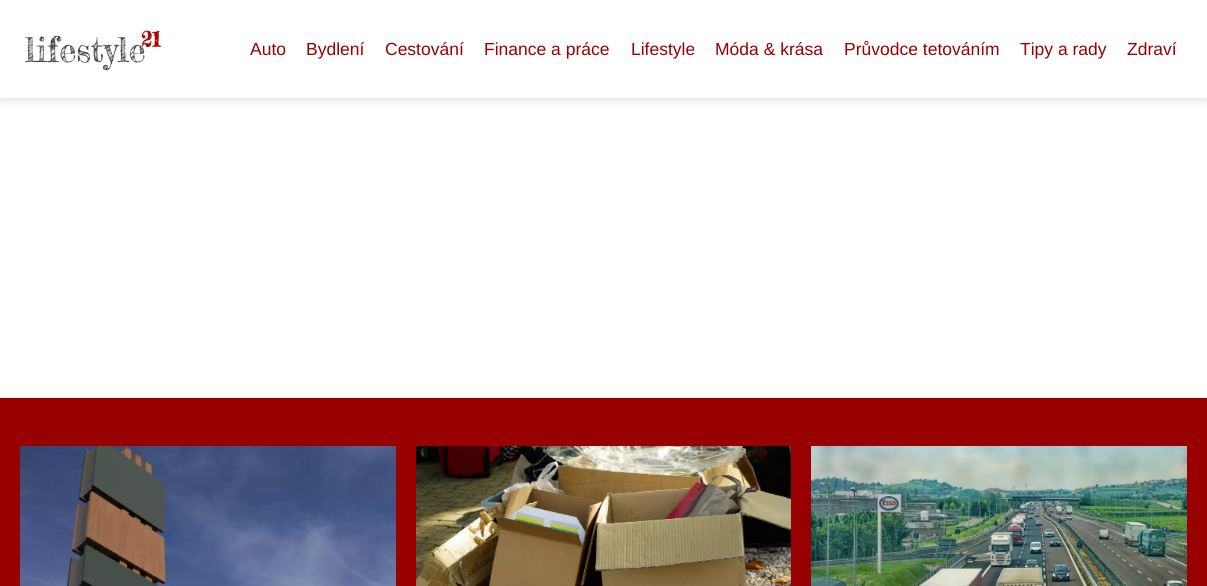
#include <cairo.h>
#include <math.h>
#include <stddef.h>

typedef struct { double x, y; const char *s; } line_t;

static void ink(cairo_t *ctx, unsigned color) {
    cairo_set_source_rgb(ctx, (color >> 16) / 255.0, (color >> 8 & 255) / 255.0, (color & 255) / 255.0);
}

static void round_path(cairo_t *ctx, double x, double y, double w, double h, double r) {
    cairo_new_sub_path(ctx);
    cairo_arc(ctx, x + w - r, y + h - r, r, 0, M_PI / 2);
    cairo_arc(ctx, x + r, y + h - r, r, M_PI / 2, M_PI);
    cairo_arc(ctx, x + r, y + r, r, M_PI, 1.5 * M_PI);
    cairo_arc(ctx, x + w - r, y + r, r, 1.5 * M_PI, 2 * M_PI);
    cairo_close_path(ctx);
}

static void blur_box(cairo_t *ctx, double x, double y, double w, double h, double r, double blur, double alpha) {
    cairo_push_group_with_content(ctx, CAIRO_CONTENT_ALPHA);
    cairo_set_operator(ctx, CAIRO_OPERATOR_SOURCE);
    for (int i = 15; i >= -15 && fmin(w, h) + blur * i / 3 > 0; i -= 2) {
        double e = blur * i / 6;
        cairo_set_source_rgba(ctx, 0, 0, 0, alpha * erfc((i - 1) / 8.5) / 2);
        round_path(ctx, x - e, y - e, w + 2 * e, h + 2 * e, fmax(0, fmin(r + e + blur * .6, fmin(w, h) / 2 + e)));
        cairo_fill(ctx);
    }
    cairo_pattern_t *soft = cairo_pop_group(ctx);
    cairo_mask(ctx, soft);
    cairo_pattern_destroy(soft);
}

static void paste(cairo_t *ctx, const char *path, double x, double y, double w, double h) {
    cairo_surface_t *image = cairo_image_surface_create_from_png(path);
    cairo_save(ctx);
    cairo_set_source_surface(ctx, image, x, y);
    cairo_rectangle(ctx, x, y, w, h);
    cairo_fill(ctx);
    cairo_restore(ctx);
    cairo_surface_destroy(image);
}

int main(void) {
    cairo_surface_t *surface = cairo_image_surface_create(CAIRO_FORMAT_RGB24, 1207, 586);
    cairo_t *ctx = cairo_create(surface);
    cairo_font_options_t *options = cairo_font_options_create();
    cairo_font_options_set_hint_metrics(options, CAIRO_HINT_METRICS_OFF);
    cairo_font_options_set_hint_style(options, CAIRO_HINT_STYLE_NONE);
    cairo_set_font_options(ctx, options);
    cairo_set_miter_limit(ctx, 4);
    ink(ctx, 0xFFFFFF);
    cairo_paint(ctx);
    cairo_save(ctx);
    cairo_rectangle(ctx, 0, 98, 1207, 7);
    cairo_clip(ctx);
    ink(ctx, 0x000000);
    blur_box(ctx, 0, 1, 1207, 98, 0, 5, 0.15);
    cairo_restore(ctx);
    paste(ctx, "media/1.png", 25, 30, 136, 41);
    cairo_select_font_face(ctx, "Liberation Sans", CAIRO_FONT_SLANT_NORMAL, CAIRO_FONT_WEIGHT_NORMAL);
    cairo_set_font_size(ctx, 17.5);
    ink(ctx, 0x990000);
    {
        static const line_t items[] = {
            {250, 55, "Auto"},
            {306, 55, "Bydlení"},
            {385, 55, "Cestování"},
            {484, 55, "Finance a práce"},
            {631, 55, "Lifestyle"},
            {715, 55, "Móda & krása"},
            {844, 55, "Průvodce tetováním"},
            {1020, 55, "Tipy a rady"},
            {1127, 55, "Zdraví"},
        };
        for (size_t i = 0; i < sizeof items / sizeof *items; i++) {
            cairo_move_to(ctx, items[i].x, items[i].y);
            cairo_show_text(ctx, items[i].s);
        }
    }
    cairo_rectangle(ctx, 0, 398, 1207, 188);
    cairo_fill(ctx);
    paste(ctx, "media/2.png", 20, 446, 376, 140);
    paste(ctx, "media/3.png", 416, 446, 375, 140);
    paste(ctx, "media/4.png", 811, 446, 376, 140);
    cairo_surface_write_to_png(surface, "image.png");
    cairo_font_options_destroy(options);
    cairo_destroy(ctx);
    cairo_surface_destroy(surface);
    return 0;
}
